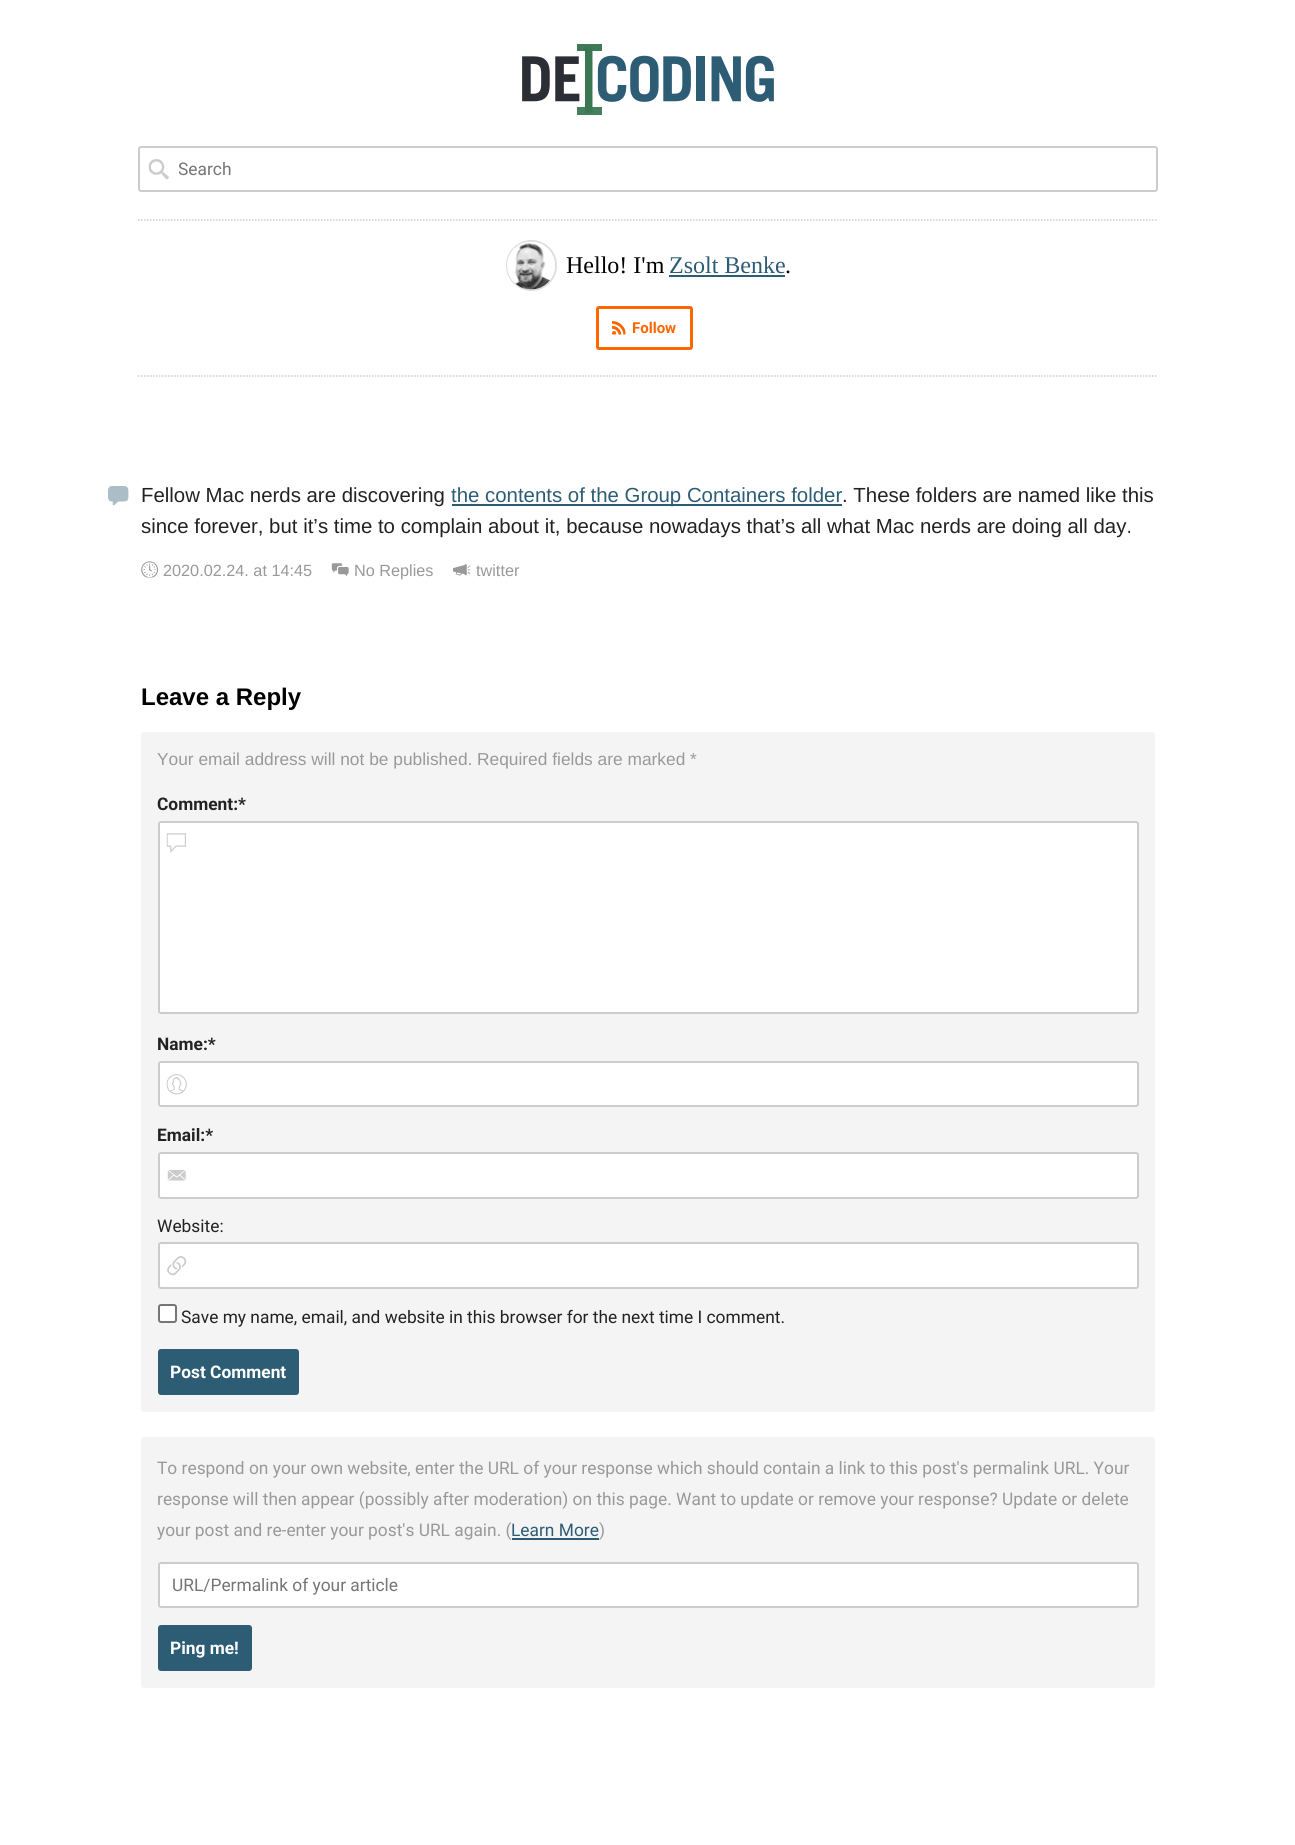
#include <cairo.h>
#include <math.h>
#include <stddef.h>

typedef struct { double x, y; const char *s; } line_t;

static void ink(cairo_t *ctx, unsigned color) {
    cairo_set_source_rgb(ctx, (color >> 16) / 255.0, (color >> 8 & 255) / 255.0, (color & 255) / 255.0);
}

static void round_path(cairo_t *ctx, double x, double y, double w, double h, double r) {
    cairo_new_sub_path(ctx);
    cairo_arc(ctx, x + w - r, y + h - r, r, 0, M_PI / 2);
    cairo_arc(ctx, x + r, y + h - r, r, M_PI / 2, M_PI);
    cairo_arc(ctx, x + r, y + r, r, M_PI, 1.5 * M_PI);
    cairo_arc(ctx, x + w - r, y + r, r, 1.5 * M_PI, 2 * M_PI);
    cairo_close_path(ctx);
}

static void paste(cairo_t *ctx, const char *path, double x, double y, double w, double h) {
    cairo_surface_t *image = cairo_image_surface_create_from_png(path);
    cairo_save(ctx);
    cairo_set_source_surface(ctx, image, x, y);
    cairo_rectangle(ctx, x, y, w, h);
    cairo_fill(ctx);
    cairo_restore(ctx);
    cairo_surface_destroy(image);
}

int main(void) {
    cairo_surface_t *surface = cairo_image_surface_create(CAIRO_FORMAT_RGB24, 1295, 1845);
    cairo_t *ctx = cairo_create(surface);
    cairo_font_options_t *options = cairo_font_options_create();
    cairo_font_options_set_hint_metrics(options, CAIRO_HINT_METRICS_OFF);
    cairo_font_options_set_hint_style(options, CAIRO_HINT_STYLE_NONE);
    cairo_set_font_options(ctx, options);
    cairo_set_miter_limit(ctx, 4);
    ink(ctx, 0xFFFFFF);
    cairo_paint(ctx);
    paste(ctx, "media/1.png", 522, 44, 252, 71);
    round_path(ctx, 139, 147, 1018, 44, 2);
    ink(ctx, 0xCCCCCC);
    cairo_stroke(ctx);
    paste(ctx, "media/2.png", 148, 159, 21, 21);
    cairo_save(ctx);
    cairo_rectangle(ctx, 179, 159, 964, 21);
    cairo_clip(ctx);
    cairo_select_font_face(ctx, "Roboto", CAIRO_FONT_SLANT_NORMAL, CAIRO_FONT_WEIGHT_NORMAL);
    cairo_set_font_size(ctx, 17.35);
    ink(ctx, 0x757575);
    cairo_move_to(ctx, 178, 175);
    cairo_show_text(ctx, "Search");
    cairo_restore(ctx);
    cairo_new_path(ctx);
    cairo_move_to(ctx, 138, 220);
    cairo_line_to(ctx, 1158, 220);
    cairo_set_line_width(ctx, 1.5);
    cairo_set_dash(ctx, (double[]){1.5, 1.5}, 2, 0);
    cairo_stroke(ctx);
    cairo_arc(ctx, 531.5, 265.5, 24.5, 0, 2 * M_PI);
    ink(ctx, 0xDDDDDD);
    cairo_set_line_width(ctx, 2);
    cairo_set_dash(ctx, NULL, 0, 0);
    cairo_stroke(ctx);
    paste(ctx, "media/3.png", 507, 241, 48, 49);
    cairo_select_font_face(ctx, "Liberation Serif", CAIRO_FONT_SLANT_NORMAL, CAIRO_FONT_WEIGHT_NORMAL);
    cairo_set_font_size(ctx, 24);
    ink(ctx, 0x000000);
    cairo_move_to(ctx, 566, 273);
    cairo_show_text(ctx, "Hello! I'm");
    ink(ctx, 0x2D5C75);
    cairo_move_to(ctx, 669, 273);
    cairo_show_text(ctx, "Zsolt Benke");
    cairo_rectangle(ctx, 669, 275, 116, 2);
    cairo_fill(ctx);
    ink(ctx, 0x000000);
    cairo_move_to(ctx, 785, 273);
    cairo_show_text(ctx, ".");
    round_path(ctx, 597.5, 307.5, 94, 41, 1.5);
    ink(ctx, 0xFF6600);
    cairo_set_line_width(ctx, 3);
    cairo_stroke(ctx);
    paste(ctx, "media/4.png", 612, 321, 14, 14);
    cairo_select_font_face(ctx, "Roboto", CAIRO_FONT_SLANT_NORMAL, CAIRO_FONT_WEIGHT_BOLD);
    cairo_set_font_size(ctx, 15);
    cairo_move_to(ctx, 632, 333);
    cairo_show_text(ctx, "Follow");
    cairo_new_path(ctx);
    cairo_move_to(ctx, 138, 376);
    cairo_line_to(ctx, 1158, 376);
    ink(ctx, 0xCCCCCC);
    cairo_set_line_width(ctx, 1.5);
    cairo_set_dash(ctx, (double[]){1.5, 1.5}, 2, 0);
    cairo_stroke(ctx);
    paste(ctx, "media/5.png", 108, 486, 21, 20);
    cairo_select_font_face(ctx, "Liberation Sans", CAIRO_FONT_SLANT_NORMAL, CAIRO_FONT_WEIGHT_NORMAL);
    cairo_set_font_size(ctx, 20.4);
    ink(ctx, 0x222222);
    cairo_move_to(ctx, 141, 502);
    cairo_show_text(ctx, "Fellow Mac nerds are discovering");
    ink(ctx, 0x2D5C75);
    cairo_rectangle(ctx, 452, 504, 390, 2);
    cairo_fill(ctx);
    cairo_move_to(ctx, 451, 502);
    cairo_show_text(ctx, "the contents of the Group Containers folder");
    ink(ctx, 0x222222);
    cairo_move_to(ctx, 842, 502);
    cairo_show_text(ctx, ". These folders are named like this");
    cairo_move_to(ctx, 141, 533);
    cairo_show_text(ctx, "since forever, but it’s time to complain about it, because nowadays that’s all what Mac nerds are doing all day.");
    paste(ctx, "media/6.png", 141, 561, 18, 17);
    cairo_set_font_size(ctx, 16.25);
    ink(ctx, 0x999999);
    cairo_move_to(ctx, 163, 576);
    cairo_show_text(ctx, "2020.02.24. at 14:45");
    paste(ctx, "media/7.png", 331, 563, 18, 14);
    cairo_move_to(ctx, 354, 576);
    cairo_show_text(ctx, "No Replies");
    paste(ctx, "media/8.png", 453, 564, 18, 12);
    cairo_move_to(ctx, 476, 576);
    cairo_show_text(ctx, "twitter");
    cairo_select_font_face(ctx, "Liberation Sans", CAIRO_FONT_SLANT_NORMAL, CAIRO_FONT_WEIGHT_BOLD);
    cairo_set_font_size(ctx, 24);
    ink(ctx, 0x000000);
    cairo_move_to(ctx, 141, 705);
    cairo_show_text(ctx, "Leave a Reply");
    ink(ctx, 0xF4F4F4);
    round_path(ctx, 141, 732, 1014, 680, 3);
    cairo_fill(ctx);
    cairo_select_font_face(ctx, "Liberation Sans", CAIRO_FONT_SLANT_NORMAL, CAIRO_FONT_WEIGHT_NORMAL);
    cairo_set_font_size(ctx, 17.35);
    ink(ctx, 0x999999);
    cairo_move_to(ctx, 157, 765);
    cairo_show_text(ctx, "Your email address will not be published.");
    cairo_move_to(ctx, 477, 765);
    cairo_show_text(ctx, "Required fields are marked *");
    cairo_select_font_face(ctx, "Roboto", CAIRO_FONT_SLANT_NORMAL, CAIRO_FONT_WEIGHT_BOLD);
    ink(ctx, 0x222222);
    cairo_move_to(ctx, 157, 810);
    cairo_show_text(ctx, "Comment:*");
    ink(ctx, 0xFFFFFF);
    round_path(ctx, 159, 822, 979, 191, 2);
    cairo_fill_preserve(ctx);
    ink(ctx, 0xCCCCCC);
    cairo_set_line_width(ctx, 2);
    cairo_set_dash(ctx, NULL, 0, 0);
    cairo_stroke(ctx);
    paste(ctx, "media/9.png", 166, 833, 20, 20);
    ink(ctx, 0x222222);
    cairo_move_to(ctx, 157, 1050);
    cairo_show_text(ctx, "Name:*");
    ink(ctx, 0xFFFFFF);
    round_path(ctx, 159, 1062, 979, 44, 2);
    cairo_fill_preserve(ctx);
    ink(ctx, 0xCCCCCC);
    cairo_stroke(ctx);
    paste(ctx, "media/10.png", 166, 1074, 21, 21);
    ink(ctx, 0x222222);
    cairo_move_to(ctx, 157, 1141);
    cairo_show_text(ctx, "Email:*");
    ink(ctx, 0xFFFFFF);
    round_path(ctx, 159, 1153, 979, 45, 2);
    cairo_fill_preserve(ctx);
    ink(ctx, 0xCCCCCC);
    cairo_stroke(ctx);
    paste(ctx, "media/11.png", 167, 1170, 19, 11);
    cairo_select_font_face(ctx, "Roboto", CAIRO_FONT_SLANT_NORMAL, CAIRO_FONT_WEIGHT_NORMAL);
    ink(ctx, 0x222222);
    cairo_move_to(ctx, 157, 1232);
    cairo_show_text(ctx, "Website:");
    ink(ctx, 0xFFFFFF);
    round_path(ctx, 159, 1243, 979, 45, 2);
    cairo_fill_preserve(ctx);
    ink(ctx, 0xCCCCCC);
    cairo_stroke(ctx);
    paste(ctx, "media/12.png", 167, 1256, 20, 20);
    ink(ctx, 0xFFFFFF);
    round_path(ctx, 159, 1305, 17, 17, 2);
    cairo_fill_preserve(ctx);
    ink(ctx, 0x767676);
    cairo_stroke(ctx);
    ink(ctx, 0x222222);
    cairo_move_to(ctx, 181, 1323);
    cairo_show_text(ctx, "Save my name, email, and website in this browser for the next time I comment.");
    ink(ctx, 0x2D5C75);
    round_path(ctx, 158, 1349, 141, 46, 3);
    cairo_fill(ctx);
    cairo_select_font_face(ctx, "Roboto", CAIRO_FONT_SLANT_NORMAL, CAIRO_FONT_WEIGHT_BOLD);
    ink(ctx, 0xFFFFFF);
    cairo_move_to(ctx, 170, 1378);
    cairo_show_text(ctx, "Post Comment");
    ink(ctx, 0xF4F4F4);
    round_path(ctx, 141, 1437, 1014, 251, 3);
    cairo_fill(ctx);
    cairo_select_font_face(ctx, "Roboto", CAIRO_FONT_SLANT_NORMAL, CAIRO_FONT_WEIGHT_NORMAL);
    ink(ctx, 0x999999);
    {
        static const line_t items[] = {
            {157, 1474, "To respond on your own website, enter the URL of your response which should contain a link to this post's permalink URL. Your"},
            {157, 1505, "response will then appear (possibly after moderation) on this page. Want to update or remove your response? Update or delete"},
            {157, 1536, "your post and re-enter your post's URL again. ("},
        };
        for (size_t i = 0; i < sizeof items / sizeof *items; i++) {
            cairo_move_to(ctx, items[i].x, items[i].y);
            cairo_show_text(ctx, items[i].s);
        }
    }
    ink(ctx, 0x2D5C75);
    cairo_move_to(ctx, 511, 1536);
    cairo_show_text(ctx, "Learn More");
    cairo_rectangle(ctx, 512, 1538, 87, 2);
    cairo_fill(ctx);
    ink(ctx, 0x999999);
    cairo_move_to(ctx, 599, 1536);
    cairo_show_text(ctx, ")");
    ink(ctx, 0xFFFFFF);
    round_path(ctx, 159, 1563, 979, 44, 2);
    cairo_fill_preserve(ctx);
    ink(ctx, 0xCCCCCC);
    cairo_stroke(ctx);
    ink(ctx, 0x757575);
    cairo_move_to(ctx, 172, 1591);
    cairo_show_text(ctx, "URL/Permalink of your article");
    ink(ctx, 0x2D5C75);
    round_path(ctx, 158, 1625, 94, 46, 3);
    cairo_fill(ctx);
    cairo_select_font_face(ctx, "Roboto", CAIRO_FONT_SLANT_NORMAL, CAIRO_FONT_WEIGHT_BOLD);
    ink(ctx, 0xFFFFFF);
    cairo_move_to(ctx, 170, 1654);
    cairo_show_text(ctx, "Ping me!");
    cairo_surface_write_to_png(surface, "image.png");
    cairo_font_options_destroy(options);
    cairo_destroy(ctx);
    cairo_surface_destroy(surface);
    return 0;
}
